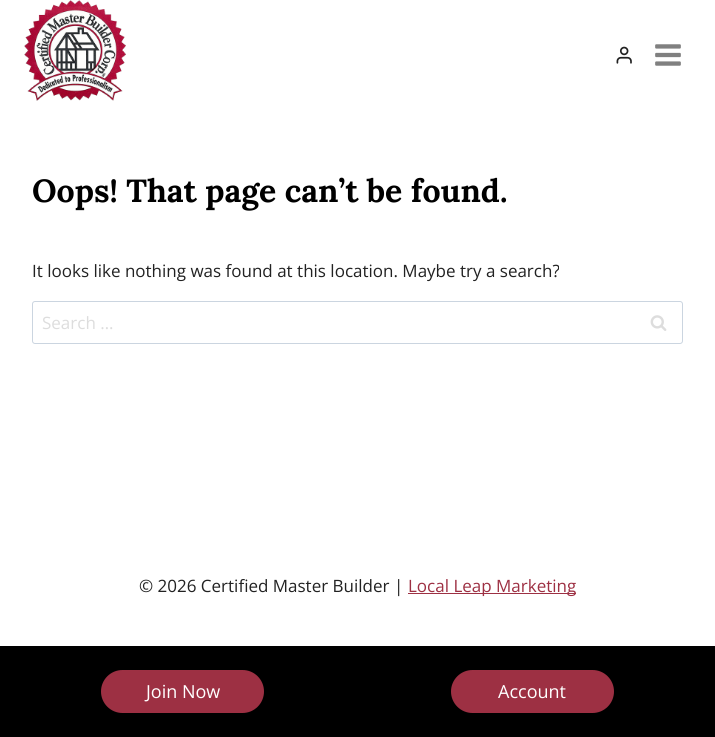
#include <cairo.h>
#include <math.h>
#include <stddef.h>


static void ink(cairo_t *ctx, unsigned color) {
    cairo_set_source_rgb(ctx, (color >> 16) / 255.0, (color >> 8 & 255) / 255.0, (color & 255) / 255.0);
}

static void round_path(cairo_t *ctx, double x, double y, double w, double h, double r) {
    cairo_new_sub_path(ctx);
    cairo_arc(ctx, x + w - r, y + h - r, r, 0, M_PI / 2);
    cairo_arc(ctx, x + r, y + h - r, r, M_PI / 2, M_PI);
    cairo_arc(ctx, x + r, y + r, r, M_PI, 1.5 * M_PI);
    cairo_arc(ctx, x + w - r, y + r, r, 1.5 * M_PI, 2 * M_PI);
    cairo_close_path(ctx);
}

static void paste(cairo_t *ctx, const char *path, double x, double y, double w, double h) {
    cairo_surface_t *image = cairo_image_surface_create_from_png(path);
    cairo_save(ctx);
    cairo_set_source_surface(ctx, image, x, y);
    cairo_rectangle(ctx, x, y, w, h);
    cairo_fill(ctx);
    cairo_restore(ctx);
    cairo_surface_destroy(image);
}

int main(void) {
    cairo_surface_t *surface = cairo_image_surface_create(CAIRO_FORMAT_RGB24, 715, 737);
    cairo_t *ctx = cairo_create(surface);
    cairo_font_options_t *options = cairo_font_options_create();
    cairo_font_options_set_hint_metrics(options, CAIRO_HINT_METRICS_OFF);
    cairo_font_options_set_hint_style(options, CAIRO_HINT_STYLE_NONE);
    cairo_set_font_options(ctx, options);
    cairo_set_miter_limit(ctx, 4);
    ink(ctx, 0xFFFFFF);
    cairo_paint(ctx);
    paste(ctx, "media/1.png", 24, 0, 102, 101);
    paste(ctx, "media/2.png", 616, 46, 16, 18);
    paste(ctx, "media/3.png", 655, 44, 26, 22);
    cairo_select_font_face(ctx, "Lora", CAIRO_FONT_SLANT_NORMAL, CAIRO_FONT_WEIGHT_BOLD);
    cairo_set_font_size(ctx, 32);
    ink(ctx, 0x000000);
    cairo_move_to(ctx, 32, 202);
    cairo_show_text(ctx, "Oops! That page can’t be found.");
    cairo_select_font_face(ctx, "Open Sans", CAIRO_FONT_SLANT_NORMAL, CAIRO_FONT_WEIGHT_NORMAL);
    cairo_set_font_size(ctx, 17);
    ink(ctx, 0x222222);
    cairo_move_to(ctx, 32, 277);
    cairo_show_text(ctx, "It looks like nothing was found at this location. Maybe try a search?");
    round_path(ctx, 32.5, 301.5, 650, 42, 2.5);
    ink(ctx, 0xCBD5E0);
    cairo_set_line_width(ctx, 1);
    cairo_stroke(ctx);
    ink(ctx, 0xDDDDDD);
    cairo_move_to(ctx, 42, 329);
    cairo_show_text(ctx, "Search …");
    paste(ctx, "media/4.png", 650, 315, 17, 16);
    ink(ctx, 0x222222);
    cairo_move_to(ctx, 139, 592);
    cairo_show_text(ctx, "© 2026 Certified Master Builder |");
    ink(ctx, 0x9D3043);
    cairo_rectangle(ctx, 408, 593, 168, 1);
    cairo_fill(ctx);
    cairo_move_to(ctx, 408, 592);
    cairo_show_text(ctx, "Local Leap Marketing");
    ink(ctx, 0x000000);
    cairo_rectangle(ctx, 0, 646, 715, 91);
    cairo_fill(ctx);
    ink(ctx, 0x9D3043);
    round_path(ctx, 101, 670, 163, 43, 21.5);
    cairo_fill(ctx);
    cairo_set_font_size(ctx, 18);
    ink(ctx, 0xFFFFFF);
    cairo_move_to(ctx, 146, 698);
    cairo_show_text(ctx, "Join Now");
    ink(ctx, 0x9D3043);
    round_path(ctx, 451, 670, 163, 43, 21.5);
    cairo_fill(ctx);
    ink(ctx, 0xFFFFFF);
    cairo_move_to(ctx, 498, 698);
    cairo_show_text(ctx, "Account");
    cairo_surface_write_to_png(surface, "image.png");
    cairo_font_options_destroy(options);
    cairo_destroy(ctx);
    cairo_surface_destroy(surface);
    return 0;
}
